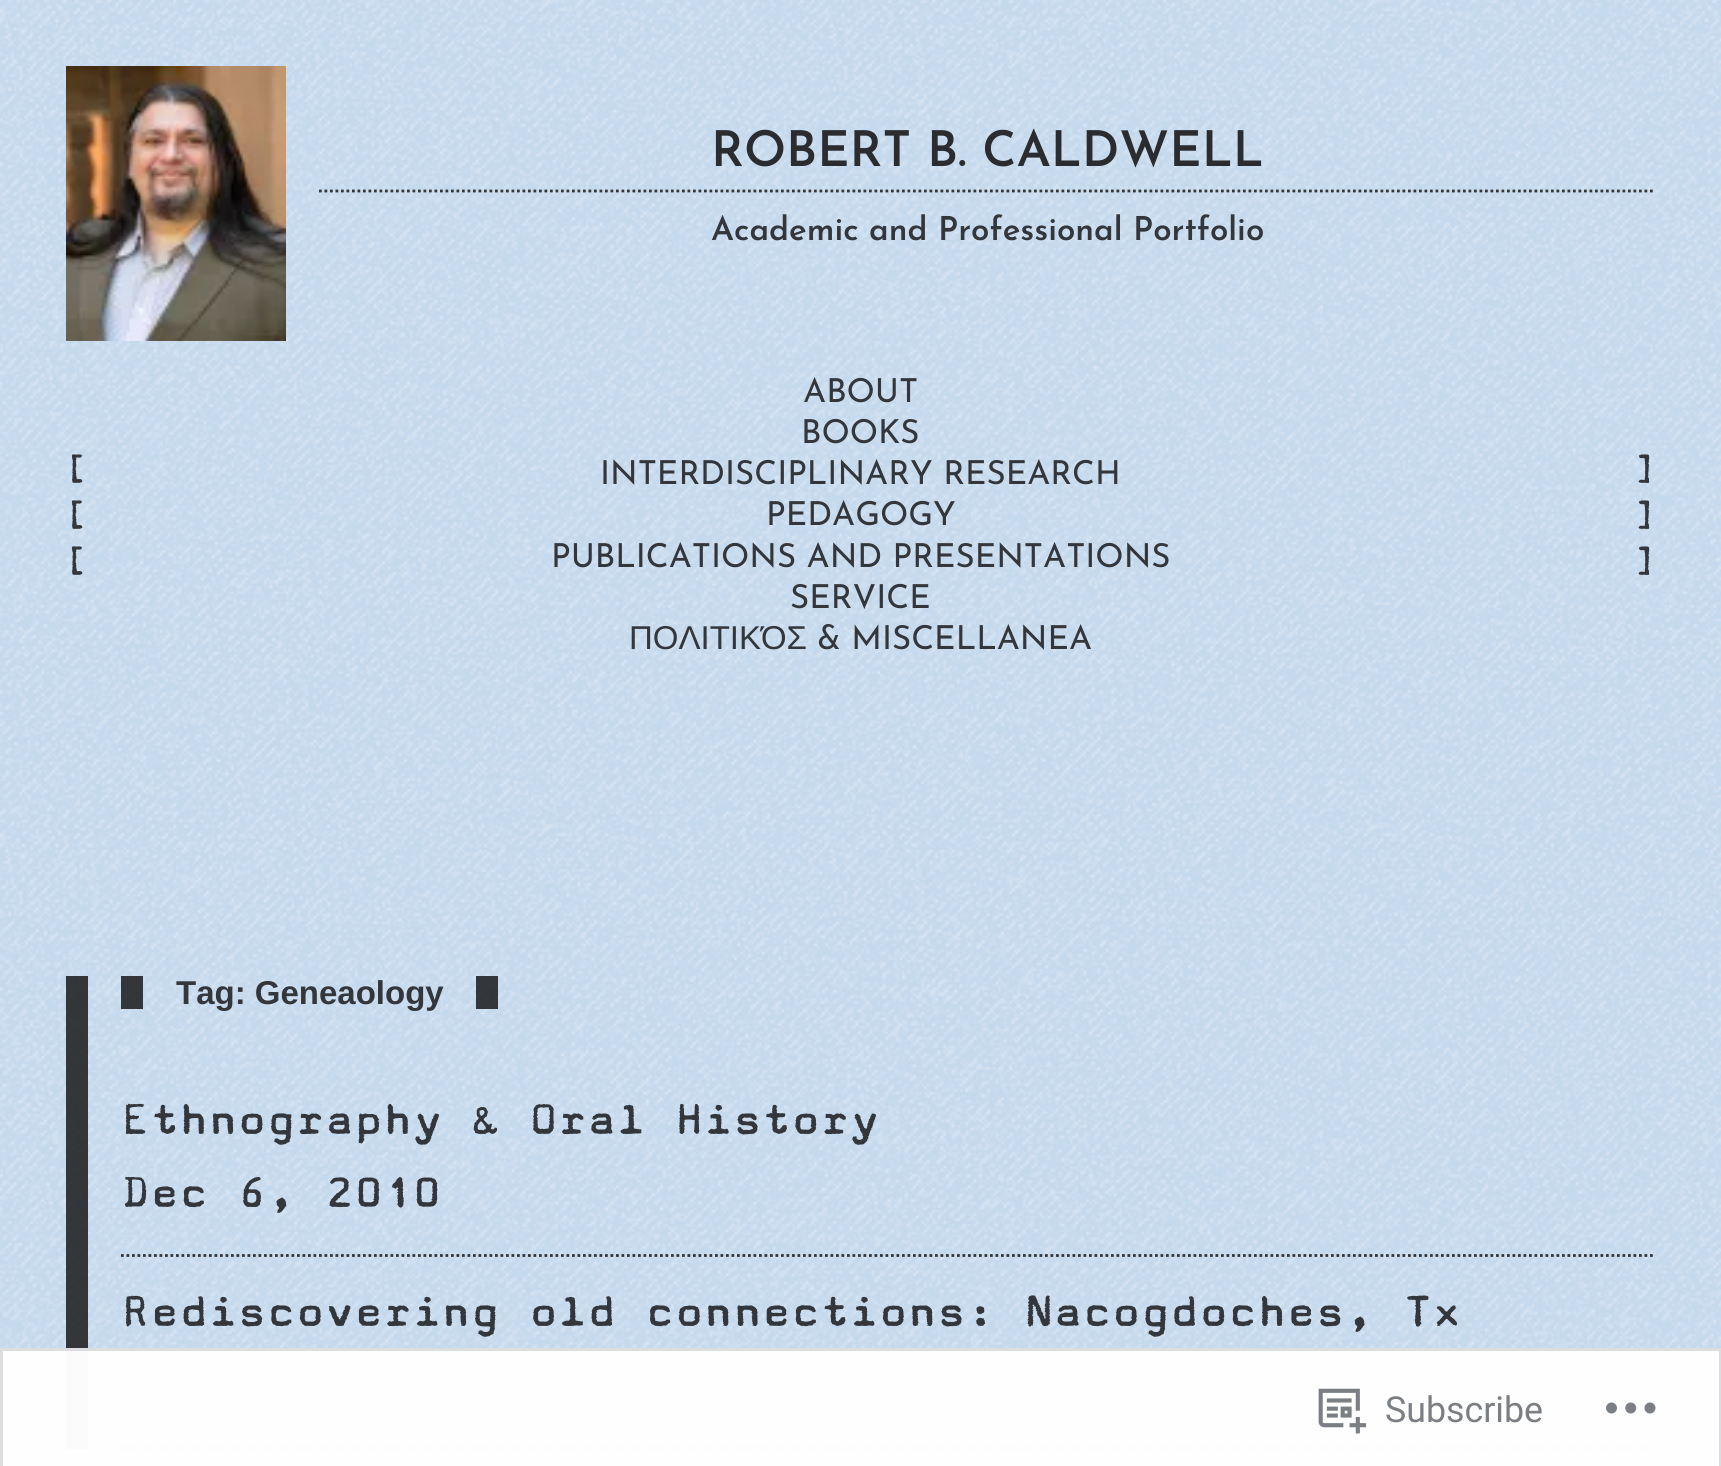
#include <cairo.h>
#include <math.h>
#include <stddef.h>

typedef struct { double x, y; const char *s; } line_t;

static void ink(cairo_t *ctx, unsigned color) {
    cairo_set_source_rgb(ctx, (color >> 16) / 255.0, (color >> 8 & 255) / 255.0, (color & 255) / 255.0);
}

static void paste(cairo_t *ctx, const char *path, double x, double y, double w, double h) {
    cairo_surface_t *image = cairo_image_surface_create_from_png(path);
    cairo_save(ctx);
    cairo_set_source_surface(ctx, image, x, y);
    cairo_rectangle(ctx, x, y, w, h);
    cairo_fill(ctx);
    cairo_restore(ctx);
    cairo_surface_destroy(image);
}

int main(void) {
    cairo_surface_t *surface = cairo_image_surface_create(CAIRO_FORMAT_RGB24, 1721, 1466);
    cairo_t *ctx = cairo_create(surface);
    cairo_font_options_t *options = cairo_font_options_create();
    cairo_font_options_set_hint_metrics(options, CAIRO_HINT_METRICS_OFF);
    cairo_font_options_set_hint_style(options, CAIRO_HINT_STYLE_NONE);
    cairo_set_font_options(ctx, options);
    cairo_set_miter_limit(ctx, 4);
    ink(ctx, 0xC5D9ED);
    cairo_paint(ctx);
    paste(ctx, "media/1.png", 0, 0, 1721, 1466);
    paste(ctx, "media/2.png", 66, 66, 220, 275);
    cairo_new_path(ctx);
    cairo_move_to(ctx, 319, 191);
    cairo_line_to(ctx, 1655.5, 191);
    cairo_set_source_rgba(ctx, 0.098, 0.098, 0.102, 0.85);
    cairo_set_line_width(ctx, 2.8);
    cairo_set_dash(ctx, (double[]){2.75, 2.75}, 2, 0);
    cairo_stroke(ctx);
    cairo_select_font_face(ctx, "Josefin Sans SemiBold", CAIRO_FONT_SLANT_NORMAL, CAIRO_FONT_WEIGHT_NORMAL);
    cairo_set_font_size(ctx, 49.25);
    ink(ctx, 0x2B2C2F);
    cairo_move_to(ctx, 711, 166);
    cairo_show_text(ctx, "ROBERT B. CALDWELL");
    cairo_set_font_size(ctx, 33);
    ink(ctx, 0x33363A);
    cairo_move_to(ctx, 711, 240);
    cairo_show_text(ctx, "Academic and Professional Portfolio");
    cairo_select_font_face(ctx, "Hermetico", CAIRO_FONT_SLANT_NORMAL, CAIRO_FONT_WEIGHT_NORMAL);
    cairo_set_font_size(ctx, 37);
    {
        static const line_t items[] = {
            {66, 480, "["},
            {66, 526, "["},
            {66, 572, "["},
        };
        for (size_t i = 0; i < sizeof items / sizeof *items; i++) {
            cairo_move_to(ctx, items[i].x, items[i].y);
            cairo_show_text(ctx, items[i].s);
        }
    }
    cairo_select_font_face(ctx, "Josefin Sans", CAIRO_FONT_SLANT_NORMAL, CAIRO_FONT_WEIGHT_NORMAL);
    cairo_set_font_size(ctx, 33);
    {
        static const line_t items[] = {
            {803, 402, "ABOUT"},
            {801, 443, "BOOKS"},
            {600, 484, "INTERDISCIPLINARY RESEARCH"},
            {766, 525, "PEDAGOGY"},
            {551, 567, "PUBLICATIONS AND PRESENTATIONS"},
            {790, 608, "SERVICE"},
        };
        for (size_t i = 0; i < sizeof items / sizeof *items; i++) {
            cairo_move_to(ctx, items[i].x, items[i].y);
            cairo_show_text(ctx, items[i].s);
        }
    }
    cairo_select_font_face(ctx, "Liberation Sans", CAIRO_FONT_SLANT_NORMAL, CAIRO_FONT_WEIGHT_NORMAL);
    cairo_move_to(ctx, 629, 649);
    cairo_show_text(ctx, "ΠΟΛΙΤΙΚΌΣ");
    cairo_select_font_face(ctx, "Josefin Sans", CAIRO_FONT_SLANT_NORMAL, CAIRO_FONT_WEIGHT_NORMAL);
    cairo_move_to(ctx, 817, 649);
    cairo_show_text(ctx, "& MISCELLANEA");
    cairo_select_font_face(ctx, "Hermetico", CAIRO_FONT_SLANT_NORMAL, CAIRO_FONT_WEIGHT_NORMAL);
    cairo_set_font_size(ctx, 37);
    {
        static const line_t items[] = {
            {1633, 480, "]"},
            {1633, 526, "]"},
            {1633, 572, "]"},
        };
        for (size_t i = 0; i < sizeof items / sizeof *items; i++) {
            cairo_move_to(ctx, items[i].x, items[i].y);
            cairo_show_text(ctx, items[i].s);
        }
    }
    cairo_set_source_rgba(ctx, 0.098, 0.098, 0.102, 0.85);
    cairo_rectangle(ctx, 66, 976, 22, 473);
    cairo_fill(ctx);
    cairo_rectangle(ctx, 476, 976, 22, 33);
    cairo_fill(ctx);
    cairo_rectangle(ctx, 121, 976, 22, 33);
    cairo_fill(ctx);
    cairo_select_font_face(ctx, "Liberation Sans", CAIRO_FONT_SLANT_NORMAL, CAIRO_FONT_WEIGHT_BOLD);
    cairo_set_font_size(ctx, 33);
    ink(ctx, 0x33363A);
    cairo_move_to(ctx, 176, 1004);
    cairo_show_text(ctx, "Tag: Geneaology");
    cairo_new_path(ctx);
    cairo_move_to(ctx, 121, 1255.5);
    cairo_line_to(ctx, 1655.5, 1255.5);
    cairo_set_source_rgba(ctx, 0.098, 0.098, 0.102, 0.85);
    cairo_stroke(ctx);
    cairo_select_font_face(ctx, "Hermetico", CAIRO_FONT_SLANT_NORMAL, CAIRO_FONT_WEIGHT_NORMAL);
    cairo_set_font_size(ctx, 48.6);
    ink(ctx, 0x33363A);
    cairo_move_to(ctx, 121, 1134);
    cairo_show_text(ctx, "Ethnography & Oral History");
    cairo_move_to(ctx, 121, 1207);
    cairo_show_text(ctx, "Dec 6, 2010");
    cairo_new_path(ctx);
    cairo_move_to(ctx, 121, 1448);
    cairo_line_to(ctx, 1655.5, 1448);
    cairo_set_source_rgba(ctx, 0.098, 0.098, 0.102, 0.85);
    cairo_stroke(ctx);
    ink(ctx, 0x33363A);
    cairo_move_to(ctx, 121, 1326);
    cairo_show_text(ctx, "Rediscovering old connections: Nacogdoches, Tx");
    cairo_set_source_rgba(ctx, 1, 1, 1, 0.98);
    cairo_rectangle(ctx, 0, 1348, 1721, 118);
    cairo_fill(ctx);
    cairo_rectangle(ctx, 1.5, 1349.5, 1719, 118);
    cairo_set_source_rgba(ctx, 0.863, 0.863, 0.871, 0.98);
    cairo_set_line_width(ctx, 3);
    cairo_set_dash(ctx, NULL, 0, 0);
    cairo_stroke(ctx);
    paste(ctx, "media/3.png", 1318, 1388, 49, 46);
    cairo_select_font_face(ctx, "Roboto", CAIRO_FONT_SLANT_NORMAL, CAIRO_FONT_WEIGHT_NORMAL);
    cairo_set_font_size(ctx, 35.75);
    ink(ctx, 0x7B7F84);
    cairo_move_to(ctx, 1385, 1422);
    cairo_show_text(ctx, "Subscribe");
    paste(ctx, "media/4.png", 1606, 1402, 50, 12);
    cairo_surface_write_to_png(surface, "image.png");
    cairo_font_options_destroy(options);
    cairo_destroy(ctx);
    cairo_surface_destroy(surface);
    return 0;
}
